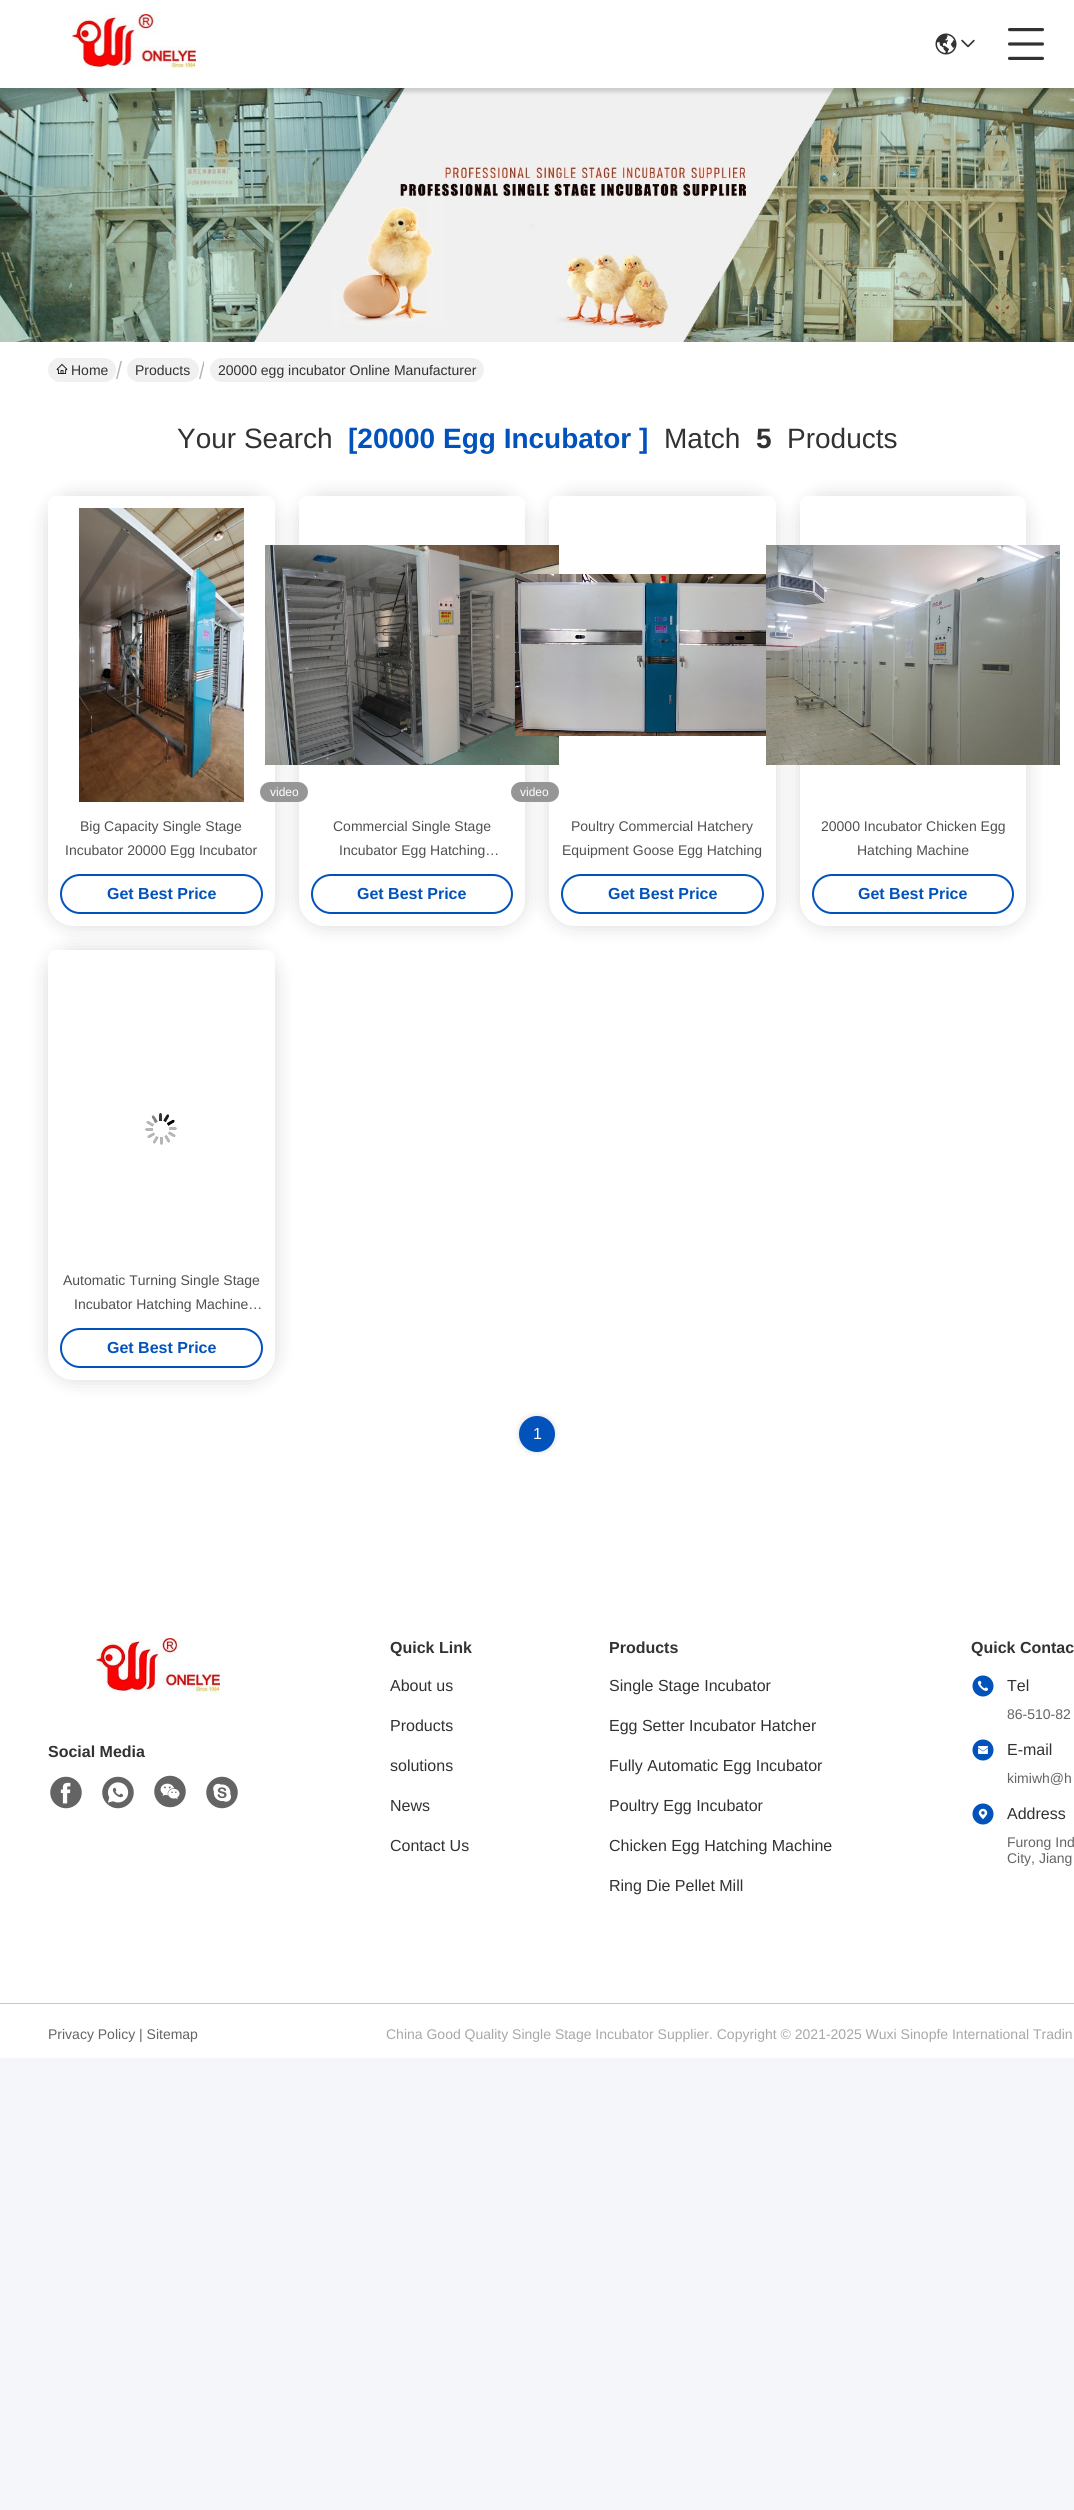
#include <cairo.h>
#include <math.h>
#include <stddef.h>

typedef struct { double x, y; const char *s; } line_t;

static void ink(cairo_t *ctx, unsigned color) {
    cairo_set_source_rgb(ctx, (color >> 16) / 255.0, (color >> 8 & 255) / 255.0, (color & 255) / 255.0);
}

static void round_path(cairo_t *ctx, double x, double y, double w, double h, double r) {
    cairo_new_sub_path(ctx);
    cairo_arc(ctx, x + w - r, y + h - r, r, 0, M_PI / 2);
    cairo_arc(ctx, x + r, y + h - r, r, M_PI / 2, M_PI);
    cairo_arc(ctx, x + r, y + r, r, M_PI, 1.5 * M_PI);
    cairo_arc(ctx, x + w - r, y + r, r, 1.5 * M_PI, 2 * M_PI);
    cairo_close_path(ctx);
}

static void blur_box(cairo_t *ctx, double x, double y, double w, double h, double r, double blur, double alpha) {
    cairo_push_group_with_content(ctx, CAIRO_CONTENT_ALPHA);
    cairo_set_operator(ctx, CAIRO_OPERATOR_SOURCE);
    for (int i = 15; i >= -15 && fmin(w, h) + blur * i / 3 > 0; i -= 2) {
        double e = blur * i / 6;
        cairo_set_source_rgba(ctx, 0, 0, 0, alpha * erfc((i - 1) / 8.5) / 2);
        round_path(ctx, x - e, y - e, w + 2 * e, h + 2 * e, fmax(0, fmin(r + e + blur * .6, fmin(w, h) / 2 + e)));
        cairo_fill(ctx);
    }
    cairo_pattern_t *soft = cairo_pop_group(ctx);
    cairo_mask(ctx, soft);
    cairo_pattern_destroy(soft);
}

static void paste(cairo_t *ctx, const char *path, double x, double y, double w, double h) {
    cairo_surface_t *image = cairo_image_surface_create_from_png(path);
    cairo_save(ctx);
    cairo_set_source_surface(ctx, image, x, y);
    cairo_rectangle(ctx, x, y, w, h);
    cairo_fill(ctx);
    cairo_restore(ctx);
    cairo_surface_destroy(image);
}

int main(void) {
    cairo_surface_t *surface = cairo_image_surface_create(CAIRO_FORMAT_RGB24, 1074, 2510);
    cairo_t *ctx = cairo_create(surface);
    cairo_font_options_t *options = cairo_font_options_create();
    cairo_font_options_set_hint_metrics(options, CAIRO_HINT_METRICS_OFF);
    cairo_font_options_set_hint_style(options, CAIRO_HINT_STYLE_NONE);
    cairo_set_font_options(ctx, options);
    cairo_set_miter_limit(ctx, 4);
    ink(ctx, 0xF4F6F9);
    cairo_paint(ctx);
    paste(ctx, "media/5.png", 0, 88, 1074, 254);
    ink(ctx, 0x000000);
    blur_box(ctx, 0, 4, 1074, 88, 0, 2, 0.15);
    ink(ctx, 0xFFFFFF);
    cairo_rectangle(ctx, 0, 0, 1074, 88);
    cairo_fill(ctx);
    paste(ctx, "media/1.png", 72, 14, 124, 55);
    paste(ctx, "media/2.png", 935, 33, 22, 22);
    paste(ctx, "media/3.png", 961, 39, 14, 9);
    paste(ctx, "media/4.png", 1008, 28, 36, 32);
    cairo_rectangle(ctx, 0, 342, 1074, 1716);
    cairo_fill(ctx);
    ink(ctx, 0xF0F0F0);
    round_path(ctx, 48, 358, 68, 24, 12);
    cairo_fill(ctx);
    paste(ctx, "media/6.png", 56, 364, 12, 10);
    cairo_select_font_face(ctx, "Liberation Sans", CAIRO_FONT_SLANT_NORMAL, CAIRO_FONT_WEIGHT_NORMAL);
    cairo_set_font_size(ctx, 14);
    ink(ctx, 0x323232);
    cairo_move_to(ctx, 71, 375);
    cairo_show_text(ctx, "Home");
    ink(ctx, 0xB4B4B4);
    cairo_set_fill_rule(ctx, CAIRO_FILL_RULE_EVEN_ODD);
    cairo_new_path(ctx);
    cairo_move_to(ctx, 122, 361);
    cairo_line_to(ctx, 117.5, 379);
    cairo_line_to(ctx, 116, 379);
    cairo_line_to(ctx, 120.5, 361);
    cairo_close_path(ctx);
    cairo_fill(ctx);
    ink(ctx, 0xF0F0F0);
    round_path(ctx, 127, 358, 72, 24, 12);
    cairo_fill(ctx);
    ink(ctx, 0x323232);
    cairo_move_to(ctx, 135, 375);
    cairo_show_text(ctx, "Products");
    cairo_save(ctx);
    cairo_set_fill_rule(ctx, CAIRO_FILL_RULE_WINDING);
    cairo_rectangle(ctx, 199, 361, 5, 18);
    cairo_clip(ctx);
    ink(ctx, 0xB4B4B4);
    cairo_set_fill_rule(ctx, CAIRO_FILL_RULE_EVEN_ODD);
    cairo_new_path(ctx);
    cairo_move_to(ctx, 205, 361);
    cairo_line_to(ctx, 200.5, 379);
    cairo_line_to(ctx, 199, 379);
    cairo_line_to(ctx, 203.5, 361);
    cairo_close_path(ctx);
    cairo_fill(ctx);
    cairo_restore(ctx);
    ink(ctx, 0xF0F0F0);
    round_path(ctx, 210, 358, 274, 24, 12);
    cairo_fill(ctx);
    ink(ctx, 0x323232);
    cairo_move_to(ctx, 218, 375);
    cairo_show_text(ctx, "20000 egg incubator Online Manufacturer");
    cairo_set_font_size(ctx, 28);
    cairo_move_to(ctx, 177, 448);
    cairo_show_text(ctx, "Your Search");
    cairo_select_font_face(ctx, "Liberation Sans", CAIRO_FONT_SLANT_NORMAL, CAIRO_FONT_WEIGHT_BOLD);
    ink(ctx, 0x0252BB);
    cairo_move_to(ctx, 348, 448);
    cairo_show_text(ctx, "[20000 Egg Incubator ]");
    cairo_select_font_face(ctx, "Liberation Sans", CAIRO_FONT_SLANT_NORMAL, CAIRO_FONT_WEIGHT_NORMAL);
    ink(ctx, 0x323232);
    cairo_move_to(ctx, 664, 448);
    cairo_show_text(ctx, "Match");
    cairo_select_font_face(ctx, "Liberation Sans", CAIRO_FONT_SLANT_NORMAL, CAIRO_FONT_WEIGHT_BOLD);
    cairo_move_to(ctx, 756, 448);
    cairo_show_text(ctx, "5");
    cairo_select_font_face(ctx, "Liberation Sans", CAIRO_FONT_SLANT_NORMAL, CAIRO_FONT_WEIGHT_NORMAL);
    cairo_move_to(ctx, 787, 448);
    cairo_show_text(ctx, "Products");
    ink(ctx, 0x000000);
    blur_box(ctx, 48, 496, 227, 430, 26, 10, 0.15);
    ink(ctx, 0xFFFFFF);
    cairo_new_path(ctx);
    cairo_move_to(ctx, 56, 496);
    cairo_line_to(ctx, 267, 496);
    cairo_curve_to(ctx, 271.5, 496, 275, 499.5, 275, 504);
    cairo_line_to(ctx, 275, 900);
    cairo_curve_to(ctx, 275, 914.5, 263.5, 926, 249, 926);
    cairo_line_to(ctx, 74, 926);
    cairo_curve_to(ctx, 59.5, 926, 48, 914.5, 48, 900);
    cairo_line_to(ctx, 48, 504);
    cairo_curve_to(ctx, 48, 499.5, 51.5, 496, 56, 496);
    cairo_close_path(ctx);
    cairo_fill(ctx);
    paste(ctx, "media/7.png", 79, 508, 165, 294);
    ink(ctx, 0x000000);
    blur_box(ctx, 299, 496, 226, 430, 26, 10, 0.15);
    ink(ctx, 0xFFFFFF);
    cairo_new_path(ctx);
    cairo_move_to(ctx, 307, 496);
    cairo_line_to(ctx, 517, 496);
    cairo_curve_to(ctx, 521.5, 496, 525, 499.5, 525, 504);
    cairo_line_to(ctx, 525, 900);
    cairo_curve_to(ctx, 525, 914.5, 513.5, 926, 499, 926);
    cairo_line_to(ctx, 325, 926);
    cairo_curve_to(ctx, 310.5, 926, 299, 914.5, 299, 900);
    cairo_line_to(ctx, 299, 504);
    cairo_curve_to(ctx, 299, 499.5, 302.5, 496, 307, 496);
    cairo_close_path(ctx);
    cairo_fill(ctx);
    ink(ctx, 0x969696);
    round_path(ctx, 260, 782, 48, 20, 10);
    cairo_fill(ctx);
    cairo_set_font_size(ctx, 12);
    ink(ctx, 0xFFFFFF);
    cairo_move_to(ctx, 270, 796);
    cairo_show_text(ctx, "video");
    cairo_set_font_size(ctx, 14);
    ink(ctx, 0x505050);
    cairo_move_to(ctx, 80, 831);
    cairo_show_text(ctx, "Big Capacity Single Stage");
    cairo_move_to(ctx, 65, 855);
    cairo_show_text(ctx, "Incubator 20000 Egg Incubator");
    round_path(ctx, 61, 875, 201, 38, 19);
    ink(ctx, 0x0252BB);
    cairo_stroke(ctx);
    cairo_select_font_face(ctx, "Liberation Sans", CAIRO_FONT_SLANT_NORMAL, CAIRO_FONT_WEIGHT_BOLD);
    cairo_set_font_size(ctx, 16);
    cairo_move_to(ctx, 107, 899);
    cairo_show_text(ctx, "Get Best Price");
    ink(ctx, 0x000000);
    blur_box(ctx, 549, 496, 227, 430, 26, 10, 0.15);
    ink(ctx, 0xFFFFFF);
    cairo_new_path(ctx);
    cairo_move_to(ctx, 557, 496);
    cairo_line_to(ctx, 768, 496);
    cairo_curve_to(ctx, 772.5, 496, 776, 499.5, 776, 504);
    cairo_line_to(ctx, 776, 900);
    cairo_curve_to(ctx, 776, 914.5, 764.5, 926, 750, 926);
    cairo_line_to(ctx, 575, 926);
    cairo_curve_to(ctx, 560.5, 926, 549, 914.5, 549, 900);
    cairo_line_to(ctx, 549, 504);
    cairo_curve_to(ctx, 549, 499.5, 552.5, 496, 557, 496);
    cairo_close_path(ctx);
    cairo_fill(ctx);
    paste(ctx, "media/8.png", 265, 545, 294, 220);
    ink(ctx, 0x969696);
    round_path(ctx, 511, 782, 48, 20, 10);
    cairo_fill(ctx);
    cairo_select_font_face(ctx, "Liberation Sans", CAIRO_FONT_SLANT_NORMAL, CAIRO_FONT_WEIGHT_NORMAL);
    cairo_set_font_size(ctx, 12);
    ink(ctx, 0xFFFFFF);
    cairo_move_to(ctx, 520, 796);
    cairo_show_text(ctx, "video");
    cairo_set_font_size(ctx, 14);
    ink(ctx, 0x505050);
    cairo_move_to(ctx, 333, 831);
    cairo_show_text(ctx, "Commercial Single Stage");
    cairo_move_to(ctx, 339, 855);
    cairo_show_text(ctx, "Incubator Egg Hatching…");
    round_path(ctx, 312, 875, 200, 38, 19);
    ink(ctx, 0x0252BB);
    cairo_stroke(ctx);
    cairo_select_font_face(ctx, "Liberation Sans", CAIRO_FONT_SLANT_NORMAL, CAIRO_FONT_WEIGHT_BOLD);
    cairo_set_font_size(ctx, 16);
    cairo_move_to(ctx, 357, 899);
    cairo_show_text(ctx, "Get Best Price");
    paste(ctx, "media/9.png", 515, 574, 251, 162);
    cairo_select_font_face(ctx, "Liberation Sans", CAIRO_FONT_SLANT_NORMAL, CAIRO_FONT_WEIGHT_NORMAL);
    cairo_set_font_size(ctx, 14);
    ink(ctx, 0x505050);
    cairo_move_to(ctx, 571, 831);
    cairo_show_text(ctx, "Poultry Commercial Hatchery");
    cairo_move_to(ctx, 562, 855);
    cairo_show_text(ctx, "Equipment Goose Egg Hatching");
    round_path(ctx, 562, 875, 201, 38, 19);
    ink(ctx, 0x0252BB);
    cairo_stroke(ctx);
    cairo_select_font_face(ctx, "Liberation Sans", CAIRO_FONT_SLANT_NORMAL, CAIRO_FONT_WEIGHT_BOLD);
    cairo_set_font_size(ctx, 16);
    cairo_move_to(ctx, 608, 899);
    cairo_show_text(ctx, "Get Best Price");
    ink(ctx, 0x000000);
    blur_box(ctx, 800, 496, 226, 430, 26, 10, 0.15);
    ink(ctx, 0xFFFFFF);
    cairo_new_path(ctx);
    cairo_move_to(ctx, 808, 496);
    cairo_line_to(ctx, 1018, 496);
    cairo_curve_to(ctx, 1022.5, 496, 1026, 499.5, 1026, 504);
    cairo_line_to(ctx, 1026, 900);
    cairo_curve_to(ctx, 1026, 914.5, 1014.5, 926, 1000, 926);
    cairo_line_to(ctx, 826, 926);
    cairo_curve_to(ctx, 811.5, 926, 800, 914.5, 800, 900);
    cairo_line_to(ctx, 800, 504);
    cairo_curve_to(ctx, 800, 499.5, 803.5, 496, 808, 496);
    cairo_close_path(ctx);
    cairo_fill(ctx);
    paste(ctx, "media/10.png", 766, 545, 294, 220);
    cairo_select_font_face(ctx, "Liberation Sans", CAIRO_FONT_SLANT_NORMAL, CAIRO_FONT_WEIGHT_NORMAL);
    cairo_set_font_size(ctx, 14);
    ink(ctx, 0x505050);
    cairo_move_to(ctx, 821, 831);
    cairo_show_text(ctx, "20000 Incubator Chicken Egg");
    cairo_move_to(ctx, 857, 855);
    cairo_show_text(ctx, "Hatching Machine");
    round_path(ctx, 813, 875, 200, 38, 19);
    ink(ctx, 0x0252BB);
    cairo_stroke(ctx);
    cairo_select_font_face(ctx, "Liberation Sans", CAIRO_FONT_SLANT_NORMAL, CAIRO_FONT_WEIGHT_BOLD);
    cairo_set_font_size(ctx, 16);
    cairo_move_to(ctx, 858, 899);
    cairo_show_text(ctx, "Get Best Price");
    ink(ctx, 0x000000);
    blur_box(ctx, 48, 950, 227, 430, 26, 10, 0.15);
    ink(ctx, 0xFFFFFF);
    cairo_new_path(ctx);
    cairo_move_to(ctx, 56, 950);
    cairo_line_to(ctx, 267, 950);
    cairo_curve_to(ctx, 271.5, 950, 275, 953.5, 275, 958);
    cairo_line_to(ctx, 275, 1354);
    cairo_curve_to(ctx, 275, 1368.5, 263.5, 1380, 249, 1380);
    cairo_line_to(ctx, 74, 1380);
    cairo_curve_to(ctx, 59.5, 1380, 48, 1368.5, 48, 1354);
    cairo_line_to(ctx, 48, 958);
    cairo_curve_to(ctx, 48, 953.5, 51.5, 950, 56, 950);
    cairo_close_path(ctx);
    cairo_fill(ctx);
    paste(ctx, "media/11.png", 145, 1113, 32, 32);
    cairo_select_font_face(ctx, "Liberation Sans", CAIRO_FONT_SLANT_NORMAL, CAIRO_FONT_WEIGHT_NORMAL);
    cairo_set_font_size(ctx, 14);
    ink(ctx, 0x505050);
    cairo_move_to(ctx, 63, 1285);
    cairo_show_text(ctx, "Automatic Turning Single Stage");
    cairo_move_to(ctx, 74, 1309);
    cairo_show_text(ctx, "Incubator Hatching Machine…");
    round_path(ctx, 61, 1329, 201, 38, 19);
    ink(ctx, 0x0252BB);
    cairo_stroke(ctx);
    cairo_select_font_face(ctx, "Liberation Sans", CAIRO_FONT_SLANT_NORMAL, CAIRO_FONT_WEIGHT_BOLD);
    cairo_set_font_size(ctx, 16);
    cairo_move_to(ctx, 107, 1353);
    cairo_show_text(ctx, "Get Best Price");
    ink(ctx, 0x000000);
    blur_box(ctx, 519, 1416, 36, 36, 18, 3, 0.15);
    ink(ctx, 0x0252BB);
    cairo_arc(ctx, 537, 1434, 18, 0, 2 * M_PI);
    cairo_fill(ctx);
    cairo_select_font_face(ctx, "Liberation Sans", CAIRO_FONT_SLANT_NORMAL, CAIRO_FONT_WEIGHT_NORMAL);
    ink(ctx, 0xFFFFFF);
    cairo_move_to(ctx, 533, 1439);
    cairo_show_text(ctx, "1");
    paste(ctx, "media/12.png", 96, 1638, 124, 55);
    cairo_select_font_face(ctx, "Liberation Sans", CAIRO_FONT_SLANT_NORMAL, CAIRO_FONT_WEIGHT_BOLD);
    ink(ctx, 0x323232);
    cairo_move_to(ctx, 48, 1757);
    cairo_show_text(ctx, "Social Media");
    paste(ctx, "media/13.png", 50, 1776, 32, 33);
    paste(ctx, "media/14.png", 102, 1776, 32, 33);
    paste(ctx, "media/15.png", 154, 1775, 32, 33);
    paste(ctx, "media/16.png", 206, 1776, 32, 33);
    cairo_move_to(ctx, 390, 1653);
    cairo_show_text(ctx, "Quick Link");
    cairo_select_font_face(ctx, "Liberation Sans", CAIRO_FONT_SLANT_NORMAL, CAIRO_FONT_WEIGHT_NORMAL);
    {
        static const line_t items[] = {
            {390, 1691, "About us"},
            {390, 1731, "Products"},
            {390, 1771, "solutions"},
            {390, 1811, "News"},
            {390, 1851, "Contact Us"},
        };
        for (size_t i = 0; i < sizeof items / sizeof *items; i++) {
            cairo_move_to(ctx, items[i].x, items[i].y);
            cairo_show_text(ctx, items[i].s);
        }
    }
    cairo_select_font_face(ctx, "Liberation Sans", CAIRO_FONT_SLANT_NORMAL, CAIRO_FONT_WEIGHT_BOLD);
    cairo_move_to(ctx, 609, 1653);
    cairo_show_text(ctx, "Products");
    cairo_select_font_face(ctx, "Liberation Sans", CAIRO_FONT_SLANT_NORMAL, CAIRO_FONT_WEIGHT_NORMAL);
    {
        static const line_t items[] = {
            {609, 1691, "Single Stage Incubator"},
            {609, 1731, "Egg Setter Incubator Hatcher"},
            {609, 1771, "Fully Automatic Egg Incubator"},
            {609, 1811, "Poultry Egg Incubator"},
            {609, 1851, "Chicken Egg Hatching Machine"},
            {609, 1891, "Ring Die Pellet Mill"},
        };
        for (size_t i = 0; i < sizeof items / sizeof *items; i++) {
            cairo_move_to(ctx, items[i].x, items[i].y);
            cairo_show_text(ctx, items[i].s);
        }
    }
    cairo_select_font_face(ctx, "Liberation Sans", CAIRO_FONT_SLANT_NORMAL, CAIRO_FONT_WEIGHT_BOLD);
    cairo_move_to(ctx, 971, 1653);
    cairo_show_text(ctx, "Quick Contac");
    paste(ctx, "media/17.png", 972, 1675, 22, 22);
    cairo_select_font_face(ctx, "Liberation Sans", CAIRO_FONT_SLANT_NORMAL, CAIRO_FONT_WEIGHT_NORMAL);
    cairo_move_to(ctx, 1007, 1691);
    cairo_show_text(ctx, "Tel");
    cairo_set_font_size(ctx, 14);
    ink(ctx, 0x646464);
    cairo_move_to(ctx, 1007, 1719);
    cairo_show_text(ctx, "86-510-82");
    paste(ctx, "media/18.png", 972, 1739, 22, 22);
    cairo_set_font_size(ctx, 16);
    ink(ctx, 0x323232);
    cairo_move_to(ctx, 1007, 1755);
    cairo_show_text(ctx, "E-mail");
    cairo_set_font_size(ctx, 14);
    ink(ctx, 0x646464);
    cairo_move_to(ctx, 1007, 1783);
    cairo_show_text(ctx, "kimiwh@h");
    paste(ctx, "media/19.png", 972, 1803, 22, 22);
    cairo_set_font_size(ctx, 16);
    ink(ctx, 0x323232);
    cairo_move_to(ctx, 1007, 1819);
    cairo_show_text(ctx, "Address");
    cairo_set_font_size(ctx, 14);
    ink(ctx, 0x646464);
    cairo_move_to(ctx, 1007, 1847);
    cairo_show_text(ctx, "Furong Ind");
    cairo_move_to(ctx, 1007, 1863);
    cairo_show_text(ctx, "City, Jiang");
    ink(ctx, 0xC8C8C8);
    cairo_rectangle(ctx, 0, 2003, 1074, 1);
    cairo_fill(ctx);
    ink(ctx, 0x646464);
    cairo_move_to(ctx, 48, 2039);
    cairo_show_text(ctx, "Privacy Policy | Sitemap");
    ink(ctx, 0xA8A8A8);
    cairo_move_to(ctx, 386, 2039);
    cairo_show_text(ctx, "China Good Quality Single Stage Incubator Supplier. Copyright © 2021-2025 Wuxi Sinopfe International Tradin");
    cairo_surface_write_to_png(surface, "image.png");
    cairo_font_options_destroy(options);
    cairo_destroy(ctx);
    cairo_surface_destroy(surface);
    return 0;
}
